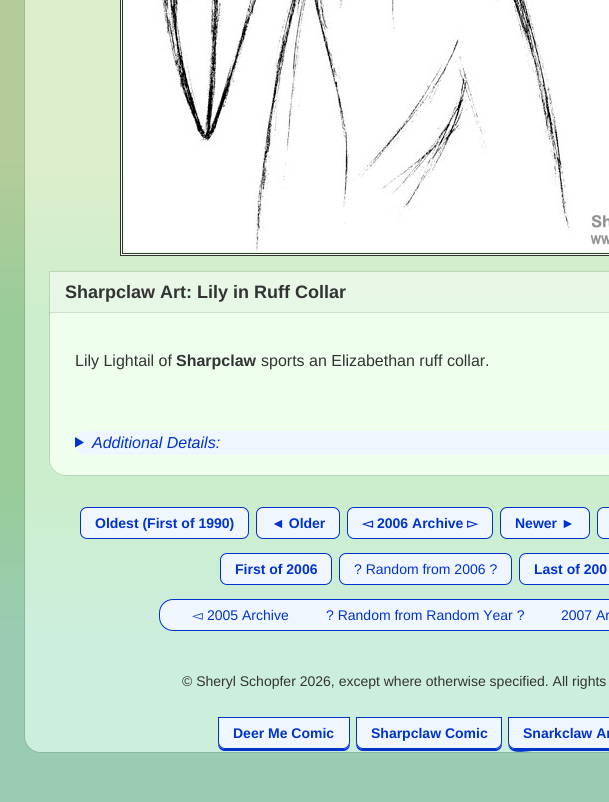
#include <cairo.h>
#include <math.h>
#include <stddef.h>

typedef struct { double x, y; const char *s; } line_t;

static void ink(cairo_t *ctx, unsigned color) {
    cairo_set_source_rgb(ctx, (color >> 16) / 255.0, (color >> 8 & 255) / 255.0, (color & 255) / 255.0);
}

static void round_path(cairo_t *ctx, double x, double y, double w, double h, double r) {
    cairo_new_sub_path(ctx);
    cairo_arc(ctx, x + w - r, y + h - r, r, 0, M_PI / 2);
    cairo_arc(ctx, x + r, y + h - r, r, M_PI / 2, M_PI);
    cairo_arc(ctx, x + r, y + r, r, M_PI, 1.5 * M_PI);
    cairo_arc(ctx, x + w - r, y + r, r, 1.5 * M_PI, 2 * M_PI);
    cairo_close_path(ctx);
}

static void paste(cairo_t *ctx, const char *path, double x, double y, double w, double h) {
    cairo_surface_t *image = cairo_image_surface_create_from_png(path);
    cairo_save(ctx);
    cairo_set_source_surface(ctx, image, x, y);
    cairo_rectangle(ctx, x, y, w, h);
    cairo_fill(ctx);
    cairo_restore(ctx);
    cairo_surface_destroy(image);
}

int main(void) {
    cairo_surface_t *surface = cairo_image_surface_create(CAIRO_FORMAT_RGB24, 609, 802);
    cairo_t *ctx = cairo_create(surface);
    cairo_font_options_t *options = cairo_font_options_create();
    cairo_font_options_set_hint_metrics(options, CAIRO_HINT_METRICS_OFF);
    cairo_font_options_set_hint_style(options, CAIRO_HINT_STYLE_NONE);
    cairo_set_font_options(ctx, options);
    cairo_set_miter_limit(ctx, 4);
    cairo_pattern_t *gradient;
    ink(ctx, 0xFFFFFF);
    cairo_paint(ctx);
    gradient = cairo_pattern_create_linear(305, 802, 305, 0);
    cairo_pattern_add_color_stop_rgba(gradient, 0, 0.6, 0.8, 0.702, 1);
    cairo_pattern_add_color_stop_rgba(gradient, 0.2, 0.6, 0.8, 0.702, 1);
    cairo_pattern_add_color_stop_rgba(gradient, 0.4, 0.6, 0.8, 0.6, 1);
    cairo_pattern_add_color_stop_rgba(gradient, 0.6, 0.6, 0.8, 0.6, 1);
    cairo_pattern_add_color_stop_rgba(gradient, 0.8, 0.702, 0.8, 0.6, 1);
    cairo_pattern_add_color_stop_rgba(gradient, 1, 0.702, 0.8, 0.6, 1);
    cairo_set_source(ctx, gradient);
    cairo_pattern_destroy(gradient);
    cairo_rectangle(ctx, 0, 0, 609, 802);
    cairo_fill(ctx);
    cairo_new_path(ctx);
    cairo_move_to(ctx, 24.5, -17.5);
    cairo_line_to(ctx, 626.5, -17.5);
    cairo_line_to(ctx, 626.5, 736);
    cairo_curve_to(ctx, 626.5, 745, 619, 752.5, 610, 752.5);
    cairo_line_to(ctx, 41, 752.5);
    cairo_curve_to(ctx, 32, 752.5, 24.5, 745, 24.5, 736);
    cairo_close_path(ctx);
    cairo_set_source_rgba(ctx, 0, 0, 0, 0.1);
    cairo_set_line_width(ctx, 1);
    cairo_stroke(ctx);
    gradient = cairo_pattern_create_linear(305, 802, 305, 0);
    cairo_pattern_add_color_stop_rgba(gradient, 0, 0.8, 0.933, 0.867, 1);
    cairo_pattern_add_color_stop_rgba(gradient, 0.2, 0.8, 0.933, 0.867, 1);
    cairo_pattern_add_color_stop_rgba(gradient, 0.4, 0.8, 0.933, 0.8, 1);
    cairo_pattern_add_color_stop_rgba(gradient, 0.6, 0.8, 0.933, 0.8, 1);
    cairo_pattern_add_color_stop_rgba(gradient, 0.8, 0.867, 0.933, 0.8, 1);
    cairo_pattern_add_color_stop_rgba(gradient, 1, 0.867, 0.933, 0.8, 1);
    cairo_set_source(ctx, gradient);
    cairo_pattern_destroy(gradient);
    cairo_new_path(ctx);
    cairo_move_to(ctx, 25, 0);
    cairo_line_to(ctx, 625, 0);
    cairo_line_to(ctx, 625, 736);
    cairo_curve_to(ctx, 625, 745, 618, 752, 609, 752);
    cairo_line_to(ctx, 41, 752);
    cairo_curve_to(ctx, 32, 752, 25, 745, 25, 736);
    cairo_close_path(ctx);
    cairo_fill(ctx);
    gradient = cairo_pattern_create_linear(305, 802, 305, 0);
    cairo_pattern_add_color_stop_rgba(gradient, 0, 0.902, 0.969, 0.933, 1);
    cairo_pattern_add_color_stop_rgba(gradient, 0.2, 0.902, 0.969, 0.933, 1);
    cairo_pattern_add_color_stop_rgba(gradient, 0.4, 0.902, 0.969, 0.902, 1);
    cairo_pattern_add_color_stop_rgba(gradient, 0.6, 0.902, 0.969, 0.902, 1);
    cairo_pattern_add_color_stop_rgba(gradient, 0.8, 0.933, 0.969, 0.902, 1);
    cairo_pattern_add_color_stop_rgba(gradient, 1, 0.933, 0.969, 0.902, 1);
    cairo_set_source(ctx, gradient);
    cairo_pattern_destroy(gradient);
    cairo_rectangle(ctx, 50, 272, 559, 41);
    cairo_fill(ctx);
    ink(ctx, 0xEEFFEE);
    cairo_rectangle(ctx, 120.5, -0.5, 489, 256);
    cairo_fill_preserve(ctx);
    ink(ctx, 0x333333);
    cairo_stroke(ctx);
    cairo_rectangle(ctx, 122.5, -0.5, 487, 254);
    cairo_stroke(ctx);
    paste(ctx, "media/1.png", 125, 0, 484, 251);
    cairo_rectangle(ctx, 49.5, 271.5, 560, 42);
    cairo_set_source_rgba(ctx, 0, 0, 0, 0.1);
    cairo_stroke(ctx);
    cairo_select_font_face(ctx, "Liberation Sans", CAIRO_FONT_SLANT_NORMAL, CAIRO_FONT_WEIGHT_BOLD);
    cairo_set_font_size(ctx, 18);
    ink(ctx, 0x333333);
    cairo_move_to(ctx, 65, 298);
    cairo_show_text(ctx, "Sharpclaw Art: Lily in Ruff Collar");
    cairo_new_path(ctx);
    cairo_move_to(ctx, 49.5, 312.5);
    cairo_line_to(ctx, 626.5, 312.5);
    cairo_line_to(ctx, 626.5, 459);
    cairo_curve_to(ctx, 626.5, 468, 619, 475.5, 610, 475.5);
    cairo_line_to(ctx, 66, 475.5);
    cairo_curve_to(ctx, 57, 475.5, 49.5, 468, 49.5, 459);
    cairo_close_path(ctx);
    cairo_set_source_rgba(ctx, 0, 0, 0, 0.1);
    cairo_stroke(ctx);
    ink(ctx, 0xEEFFEE);
    cairo_new_path(ctx);
    cairo_move_to(ctx, 50, 313);
    cairo_line_to(ctx, 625, 313);
    cairo_line_to(ctx, 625, 459);
    cairo_curve_to(ctx, 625, 468, 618, 475, 609, 475);
    cairo_line_to(ctx, 66, 475);
    cairo_curve_to(ctx, 57, 475, 50, 468, 50, 459);
    cairo_close_path(ctx);
    cairo_fill(ctx);
    cairo_select_font_face(ctx, "Liberation Sans", CAIRO_FONT_SLANT_NORMAL, CAIRO_FONT_WEIGHT_NORMAL);
    cairo_set_font_size(ctx, 16);
    ink(ctx, 0x333333);
    cairo_move_to(ctx, 75, 366);
    cairo_show_text(ctx, "Lily Lightail of");
    cairo_select_font_face(ctx, "Liberation Sans", CAIRO_FONT_SLANT_NORMAL, CAIRO_FONT_WEIGHT_BOLD);
    cairo_move_to(ctx, 176, 366);
    cairo_show_text(ctx, "Sharpclaw");
    cairo_select_font_face(ctx, "Liberation Sans", CAIRO_FONT_SLANT_NORMAL, CAIRO_FONT_WEIGHT_NORMAL);
    cairo_move_to(ctx, 261, 366);
    cairo_show_text(ctx, "sports an Elizabethan ruff collar.");
    ink(ctx, 0xF0F6FF);
    round_path(ctx, 75, 431, 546, 24, 12);
    cairo_fill(ctx);
    ink(ctx, 0x0033CC);
    cairo_new_path(ctx);
    cairo_move_to(ctx, 75, 437);
    cairo_line_to(ctx, 84, 442.5);
    cairo_line_to(ctx, 75, 447.5);
    cairo_close_path(ctx);
    cairo_fill(ctx);
    cairo_select_font_face(ctx, "Liberation Sans", CAIRO_FONT_SLANT_ITALIC, CAIRO_FONT_WEIGHT_NORMAL);
    cairo_move_to(ctx, 92, 448);
    cairo_show_text(ctx, "Additional Details:");
    ink(ctx, 0xF0F6FF);
    round_path(ctx, 80.5, 507.5, 168, 31, 6.5);
    cairo_fill_preserve(ctx);
    ink(ctx, 0x0033CC);
    cairo_stroke(ctx);
    cairo_select_font_face(ctx, "Liberation Sans", CAIRO_FONT_SLANT_NORMAL, CAIRO_FONT_WEIGHT_BOLD);
    cairo_set_font_size(ctx, 14);
    cairo_move_to(ctx, 95, 528);
    cairo_show_text(ctx, "Oldest (First of 1990)");
    ink(ctx, 0xF0F6FF);
    round_path(ctx, 256.5, 507.5, 83, 31, 6.5);
    cairo_fill_preserve(ctx);
    ink(ctx, 0x0033CC);
    cairo_stroke(ctx);
    cairo_move_to(ctx, 271, 528);
    cairo_show_text(ctx, "◄ Older");
    ink(ctx, 0xF0F6FF);
    round_path(ctx, 347.5, 507.5, 145, 31, 6.5);
    cairo_fill_preserve(ctx);
    ink(ctx, 0x0033CC);
    cairo_stroke(ctx);
    cairo_select_font_face(ctx, "DejaVu Sans", CAIRO_FONT_SLANT_NORMAL, CAIRO_FONT_WEIGHT_BOLD);
    cairo_move_to(ctx, 362, 528);
    cairo_show_text(ctx, "◅");
    cairo_select_font_face(ctx, "Liberation Sans", CAIRO_FONT_SLANT_NORMAL, CAIRO_FONT_WEIGHT_BOLD);
    cairo_move_to(ctx, 377, 528);
    cairo_show_text(ctx, "2006 Archive");
    cairo_select_font_face(ctx, "DejaVu Sans", CAIRO_FONT_SLANT_NORMAL, CAIRO_FONT_WEIGHT_BOLD);
    cairo_move_to(ctx, 467, 528);
    cairo_show_text(ctx, "▻");
    ink(ctx, 0xF0F6FF);
    round_path(ctx, 500.5, 507.5, 89, 31, 6.5);
    cairo_fill_preserve(ctx);
    ink(ctx, 0x0033CC);
    cairo_stroke(ctx);
    cairo_select_font_face(ctx, "Liberation Sans", CAIRO_FONT_SLANT_NORMAL, CAIRO_FONT_WEIGHT_BOLD);
    cairo_move_to(ctx, 515, 528);
    cairo_show_text(ctx, "Newer ►");
    ink(ctx, 0xF0F6FF);
    round_path(ctx, 597.5, 507.5, 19, 31, 6.5);
    cairo_fill_preserve(ctx);
    ink(ctx, 0x0033CC);
    cairo_stroke(ctx);
    ink(ctx, 0xF0F6FF);
    round_path(ctx, 220.5, 553.5, 111, 31, 6.5);
    cairo_fill_preserve(ctx);
    ink(ctx, 0x0033CC);
    cairo_stroke(ctx);
    cairo_move_to(ctx, 235, 574);
    cairo_show_text(ctx, "First of 2006");
    ink(ctx, 0xF0F6FF);
    round_path(ctx, 339.5, 553.5, 172, 31, 6.5);
    cairo_fill_preserve(ctx);
    ink(ctx, 0x0033CC);
    cairo_stroke(ctx);
    cairo_select_font_face(ctx, "Liberation Sans", CAIRO_FONT_SLANT_NORMAL, CAIRO_FONT_WEIGHT_NORMAL);
    cairo_move_to(ctx, 354, 574);
    cairo_show_text(ctx, "? Random from 2006 ?");
    ink(ctx, 0xF0F6FF);
    round_path(ctx, 519.5, 553.5, 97, 31, 6.5);
    cairo_fill_preserve(ctx);
    ink(ctx, 0x0033CC);
    cairo_stroke(ctx);
    cairo_select_font_face(ctx, "Liberation Sans", CAIRO_FONT_SLANT_NORMAL, CAIRO_FONT_WEIGHT_BOLD);
    cairo_move_to(ctx, 534, 574);
    cairo_show_text(ctx, "Last of 200");
    ink(ctx, 0xF0F6FF);
    round_path(ctx, 159.5, 599.5, 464, 31, 13.5);
    cairo_fill_preserve(ctx);
    ink(ctx, 0x0033CC);
    cairo_stroke(ctx);
    cairo_select_font_face(ctx, "DejaVu Sans", CAIRO_FONT_SLANT_NORMAL, CAIRO_FONT_WEIGHT_NORMAL);
    cairo_move_to(ctx, 192, 620);
    cairo_show_text(ctx, "◅");
    cairo_select_font_face(ctx, "Liberation Sans", CAIRO_FONT_SLANT_NORMAL, CAIRO_FONT_WEIGHT_NORMAL);
    {
        static const line_t items[] = {
            {207, 620, "2005 Archive"},
            {326, 620, "? Random from Random Year ?"},
            {561, 620, "2007 Ar"},
        };
        for (size_t i = 0; i < sizeof items / sizeof *items; i++) {
            cairo_move_to(ctx, items[i].x, items[i].y);
            cairo_show_text(ctx, items[i].s);
        }
    }
    ink(ctx, 0x333333);
    cairo_move_to(ctx, 182, 686);
    cairo_show_text(ctx, "© Sheryl Schopfer 2026, except where otherwise specified. All rights");
    ink(ctx, 0x0033CC);
    cairo_new_path(ctx);
    cairo_move_to(ctx, 218, 742);
    cairo_line_to(ctx, 218, 744);
    cairo_curve_to(ctx, 218, 748, 221, 751, 225, 751);
    cairo_line_to(ctx, 343, 751);
    cairo_curve_to(ctx, 347, 751, 350, 748, 350, 744);
    cairo_line_to(ctx, 350, 742);
    cairo_curve_to(ctx, 350, 746, 347, 749, 343, 749);
    cairo_line_to(ctx, 225, 749);
    cairo_curve_to(ctx, 221, 749, 218, 746, 218, 742);
    cairo_close_path(ctx);
    cairo_fill(ctx);
    ink(ctx, 0xF0F6FF);
    cairo_new_path(ctx);
    cairo_move_to(ctx, 218.5, 717.5);
    cairo_line_to(ctx, 349.5, 717.5);
    cairo_line_to(ctx, 349.5, 742);
    cairo_curve_to(ctx, 349.5, 745.5, 346.5, 748.5, 343, 748.5);
    cairo_line_to(ctx, 225, 748.5);
    cairo_curve_to(ctx, 221.5, 748.5, 218.5, 745.5, 218.5, 742);
    cairo_close_path(ctx);
    cairo_fill_preserve(ctx);
    ink(ctx, 0x0033CC);
    cairo_stroke(ctx);
    cairo_select_font_face(ctx, "Liberation Sans", CAIRO_FONT_SLANT_NORMAL, CAIRO_FONT_WEIGHT_BOLD);
    cairo_move_to(ctx, 233, 738);
    cairo_show_text(ctx, "Deer Me Comic");
    cairo_new_path(ctx);
    cairo_move_to(ctx, 356, 742);
    cairo_line_to(ctx, 356, 744);
    cairo_curve_to(ctx, 356, 748, 359, 751, 363, 751);
    cairo_line_to(ctx, 495, 751);
    cairo_curve_to(ctx, 499, 751, 502, 748, 502, 744);
    cairo_line_to(ctx, 502, 742);
    cairo_curve_to(ctx, 502, 746, 499, 749, 495, 749);
    cairo_line_to(ctx, 363, 749);
    cairo_curve_to(ctx, 359, 749, 356, 746, 356, 742);
    cairo_close_path(ctx);
    cairo_fill(ctx);
    ink(ctx, 0xF0F6FF);
    cairo_new_path(ctx);
    cairo_move_to(ctx, 356.5, 717.5);
    cairo_line_to(ctx, 501.5, 717.5);
    cairo_line_to(ctx, 501.5, 742);
    cairo_curve_to(ctx, 501.5, 745.5, 498.5, 748.5, 495, 748.5);
    cairo_line_to(ctx, 363, 748.5);
    cairo_curve_to(ctx, 359.5, 748.5, 356.5, 745.5, 356.5, 742);
    cairo_close_path(ctx);
    cairo_fill_preserve(ctx);
    ink(ctx, 0x0033CC);
    cairo_stroke(ctx);
    cairo_move_to(ctx, 371, 738);
    cairo_show_text(ctx, "Sharpclaw Comic");
    cairo_new_path(ctx);
    cairo_move_to(ctx, 508, 742);
    cairo_curve_to(ctx, 508, 756, 523, 751, 533, 751);
    cairo_line_to(ctx, 607, 751);
    cairo_curve_to(ctx, 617, 751, 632, 756, 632, 742);
    cairo_curve_to(ctx, 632, 746, 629, 749, 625, 749);
    cairo_line_to(ctx, 515, 749);
    cairo_curve_to(ctx, 511, 749, 508, 746, 508, 742);
    cairo_close_path(ctx);
    cairo_fill(ctx);
    ink(ctx, 0xF0F6FF);
    cairo_new_path(ctx);
    cairo_move_to(ctx, 508.5, 717.5);
    cairo_line_to(ctx, 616.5, 717.5);
    cairo_line_to(ctx, 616.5, 742);
    cairo_curve_to(ctx, 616.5, 745.5, 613.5, 748.5, 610, 748.5);
    cairo_line_to(ctx, 515, 748.5);
    cairo_curve_to(ctx, 511.5, 748.5, 508.5, 745.5, 508.5, 742);
    cairo_close_path(ctx);
    cairo_fill_preserve(ctx);
    ink(ctx, 0x0033CC);
    cairo_stroke(ctx);
    cairo_move_to(ctx, 523, 738);
    cairo_show_text(ctx, "Snarkclaw Ar");
    cairo_surface_write_to_png(surface, "image.png");
    cairo_font_options_destroy(options);
    cairo_destroy(ctx);
    cairo_surface_destroy(surface);
    return 0;
}
